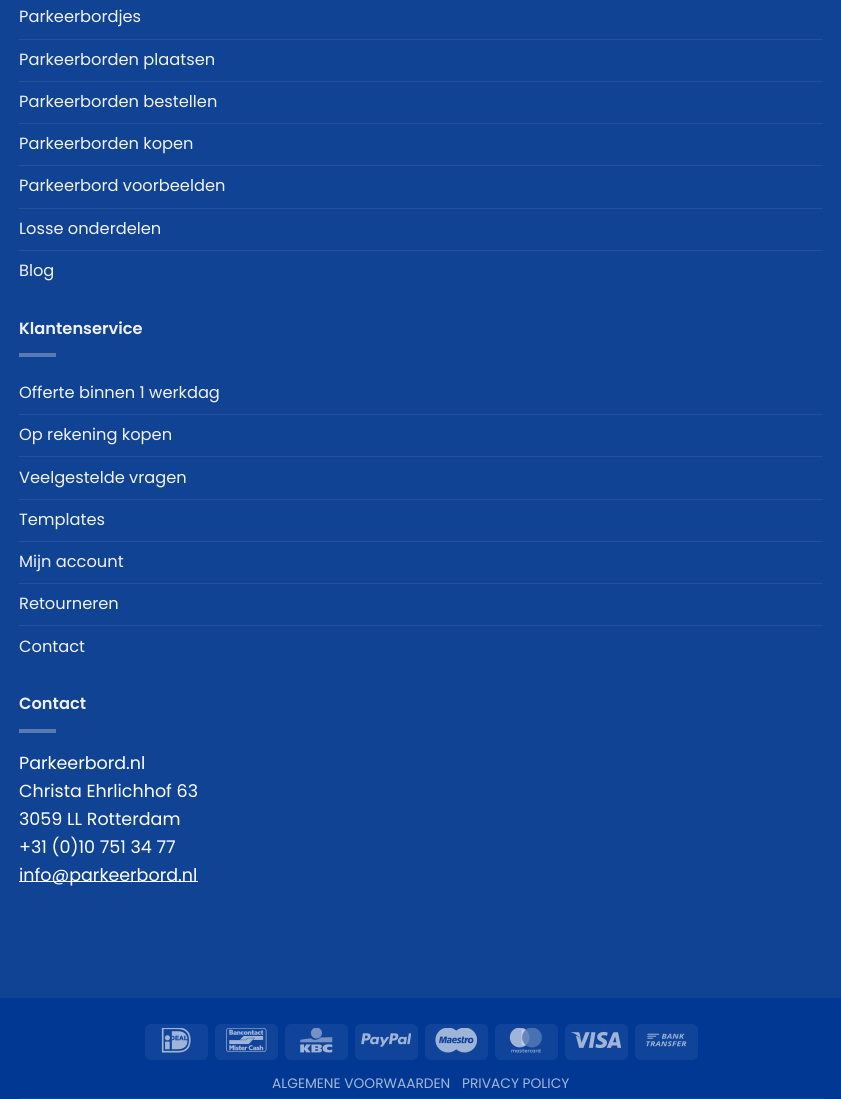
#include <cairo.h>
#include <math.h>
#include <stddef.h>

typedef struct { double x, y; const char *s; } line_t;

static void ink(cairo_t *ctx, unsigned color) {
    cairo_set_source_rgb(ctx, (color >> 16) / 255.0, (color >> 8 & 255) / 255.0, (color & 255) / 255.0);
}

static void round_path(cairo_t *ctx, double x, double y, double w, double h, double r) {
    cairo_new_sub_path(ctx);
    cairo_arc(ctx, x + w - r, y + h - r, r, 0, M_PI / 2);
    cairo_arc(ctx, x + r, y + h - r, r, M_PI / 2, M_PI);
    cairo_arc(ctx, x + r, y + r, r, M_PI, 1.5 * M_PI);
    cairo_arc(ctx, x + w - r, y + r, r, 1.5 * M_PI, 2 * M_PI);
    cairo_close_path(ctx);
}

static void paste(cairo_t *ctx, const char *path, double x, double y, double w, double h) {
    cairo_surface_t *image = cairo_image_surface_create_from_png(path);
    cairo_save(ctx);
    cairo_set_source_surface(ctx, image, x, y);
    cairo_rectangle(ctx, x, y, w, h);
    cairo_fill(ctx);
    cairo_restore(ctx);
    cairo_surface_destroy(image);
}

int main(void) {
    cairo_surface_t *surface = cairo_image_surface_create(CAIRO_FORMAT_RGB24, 841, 1099);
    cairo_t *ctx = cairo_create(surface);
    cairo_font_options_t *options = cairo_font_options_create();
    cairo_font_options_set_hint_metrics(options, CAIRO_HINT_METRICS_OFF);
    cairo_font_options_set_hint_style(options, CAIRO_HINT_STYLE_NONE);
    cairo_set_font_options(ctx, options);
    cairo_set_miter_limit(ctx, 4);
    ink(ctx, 0x104394);
    cairo_paint(ctx);
    cairo_select_font_face(ctx, "Poppins", CAIRO_FONT_SLANT_NORMAL, CAIRO_FONT_WEIGHT_NORMAL);
    cairo_set_font_size(ctx, 16.25);
    ink(ctx, 0xF1F1F1);
    cairo_move_to(ctx, 19, 22);
    cairo_show_text(ctx, "Parkeerbordjes");
    ink(ctx, 0x23529D);
    cairo_rectangle(ctx, 19, 39, 804, 1);
    cairo_fill(ctx);
    ink(ctx, 0xF1F1F1);
    cairo_move_to(ctx, 19, 65);
    cairo_show_text(ctx, "Parkeerborden plaatsen");
    ink(ctx, 0x23529D);
    cairo_rectangle(ctx, 19, 81, 804, 1);
    cairo_fill(ctx);
    ink(ctx, 0xF1F1F1);
    cairo_move_to(ctx, 19, 107);
    cairo_show_text(ctx, "Parkeerborden bestellen");
    ink(ctx, 0x23529D);
    cairo_rectangle(ctx, 19, 123, 804, 1);
    cairo_fill(ctx);
    ink(ctx, 0xF1F1F1);
    cairo_move_to(ctx, 19, 149);
    cairo_show_text(ctx, "Parkeerborden kopen");
    ink(ctx, 0x23529D);
    cairo_rectangle(ctx, 19, 165, 804, 1);
    cairo_fill(ctx);
    ink(ctx, 0xF1F1F1);
    cairo_move_to(ctx, 19, 191);
    cairo_show_text(ctx, "Parkeerbord voorbeelden");
    ink(ctx, 0x23529D);
    cairo_rectangle(ctx, 19, 208, 804, 1);
    cairo_fill(ctx);
    ink(ctx, 0xF1F1F1);
    cairo_move_to(ctx, 19, 234);
    cairo_show_text(ctx, "Losse onderdelen");
    ink(ctx, 0x23529D);
    cairo_rectangle(ctx, 19, 250, 804, 1);
    cairo_fill(ctx);
    ink(ctx, 0xF1F1F1);
    cairo_move_to(ctx, 19, 276);
    cairo_show_text(ctx, "Blog");
    cairo_select_font_face(ctx, "Poppins SemiBold", CAIRO_FONT_SLANT_NORMAL, CAIRO_FONT_WEIGHT_NORMAL);
    cairo_move_to(ctx, 19, 334);
    cairo_show_text(ctx, "Klantenservice");
    ink(ctx, 0x587BB4);
    cairo_rectangle(ctx, 19, 353, 37, 4);
    cairo_fill(ctx);
    cairo_select_font_face(ctx, "Poppins", CAIRO_FONT_SLANT_NORMAL, CAIRO_FONT_WEIGHT_NORMAL);
    ink(ctx, 0xF1F1F1);
    cairo_move_to(ctx, 19, 398);
    cairo_show_text(ctx, "Offerte binnen 1 werkdag");
    ink(ctx, 0x23529D);
    cairo_rectangle(ctx, 19, 414, 804, 1);
    cairo_fill(ctx);
    ink(ctx, 0xF1F1F1);
    cairo_move_to(ctx, 19, 440);
    cairo_show_text(ctx, "Op rekening kopen");
    ink(ctx, 0x23529D);
    cairo_rectangle(ctx, 19, 456, 804, 1);
    cairo_fill(ctx);
    ink(ctx, 0xF1F1F1);
    cairo_move_to(ctx, 19, 483);
    cairo_show_text(ctx, "Veelgestelde vragen");
    ink(ctx, 0x23529D);
    cairo_rectangle(ctx, 19, 499, 804, 1);
    cairo_fill(ctx);
    ink(ctx, 0xF1F1F1);
    cairo_move_to(ctx, 19, 525);
    cairo_show_text(ctx, "Templates");
    ink(ctx, 0x23529D);
    cairo_rectangle(ctx, 19, 541, 804, 1);
    cairo_fill(ctx);
    ink(ctx, 0xF1F1F1);
    cairo_move_to(ctx, 19, 567);
    cairo_show_text(ctx, "Mijn account");
    ink(ctx, 0x23529D);
    cairo_rectangle(ctx, 19, 583, 804, 1);
    cairo_fill(ctx);
    ink(ctx, 0xF1F1F1);
    cairo_move_to(ctx, 19, 609);
    cairo_show_text(ctx, "Retourneren");
    ink(ctx, 0x23529D);
    cairo_rectangle(ctx, 19, 625, 804, 1);
    cairo_fill(ctx);
    ink(ctx, 0xF1F1F1);
    cairo_move_to(ctx, 19, 652);
    cairo_show_text(ctx, "Contact");
    cairo_select_font_face(ctx, "Poppins SemiBold", CAIRO_FONT_SLANT_NORMAL, CAIRO_FONT_WEIGHT_NORMAL);
    cairo_move_to(ctx, 19, 709);
    cairo_show_text(ctx, "Contact");
    ink(ctx, 0x587BB4);
    cairo_rectangle(ctx, 19, 729, 37, 4);
    cairo_fill(ctx);
    cairo_select_font_face(ctx, "Poppins", CAIRO_FONT_SLANT_NORMAL, CAIRO_FONT_WEIGHT_NORMAL);
    cairo_set_font_size(ctx, 17.5);
    ink(ctx, 0xFFFFFF);
    {
        static const line_t items[] = {
            {19, 769, "Parkeerbord.nl"},
            {19, 797, "Christa Ehrlichhof 63"},
            {19, 825, "3059 LL Rotterdam"},
            {19, 853, "+31 (0)10 751 34 77"},
        };
        for (size_t i = 0; i < sizeof items / sizeof *items; i++) {
            cairo_move_to(ctx, items[i].x, items[i].y);
            cairo_show_text(ctx, items[i].s);
        }
    }
    cairo_rectangle(ctx, 19, 881, 179, 1);
    cairo_fill(ctx);
    cairo_move_to(ctx, 19, 881);
    cairo_show_text(ctx, "info@parkeerbord.nl");
    ink(ctx, 0x003893);
    cairo_rectangle(ctx, 0, 998, 841, 101);
    cairo_fill(ctx);
    ink(ctx, 0x0F449A);
    round_path(ctx, 145, 1024, 63, 36, 6);
    cairo_fill(ctx);
    paste(ctx, "media/1.png", 161, 1028, 30, 25);
    round_path(ctx, 215, 1024, 63, 36, 6);
    cairo_fill(ctx);
    paste(ctx, "media/2.png", 226, 1028, 41, 24);
    round_path(ctx, 285, 1024, 63, 36, 6);
    cairo_fill(ctx);
    paste(ctx, "media/3.png", 300, 1028, 33, 25);
    round_path(ctx, 355, 1024, 63, 36, 6);
    cairo_fill(ctx);
    paste(ctx, "media/4.png", 361, 1033, 50, 14);
    round_path(ctx, 425, 1024, 63, 36, 6);
    cairo_fill(ctx);
    paste(ctx, "media/5.png", 435, 1028, 42, 25);
    round_path(ctx, 495, 1024, 63, 36, 6);
    cairo_fill(ctx);
    paste(ctx, "media/6.png", 509, 1028, 33, 25);
    round_path(ctx, 565, 1024, 63, 36, 6);
    cairo_fill(ctx);
    paste(ctx, "media/7.png", 571, 1031, 50, 18);
    round_path(ctx, 635, 1024, 63, 36, 6);
    cairo_fill(ctx);
    paste(ctx, "media/8.png", 646, 1033, 41, 14);
    ink(ctx, 0x10459A);
    cairo_rectangle(ctx, 19, 1098, 804, 1);
    cairo_fill(ctx);
    cairo_set_font_size(ctx, 13.75);
    ink(ctx, 0xA3B7D8);
    cairo_move_to(ctx, 272, 1088);
    cairo_show_text(ctx, "ALGEMENE VOORWAARDEN");
    cairo_move_to(ctx, 462, 1088);
    cairo_show_text(ctx, "PRIVACY POLICY");
    cairo_surface_write_to_png(surface, "image.png");
    cairo_font_options_destroy(options);
    cairo_destroy(ctx);
    cairo_surface_destroy(surface);
    return 0;
}
